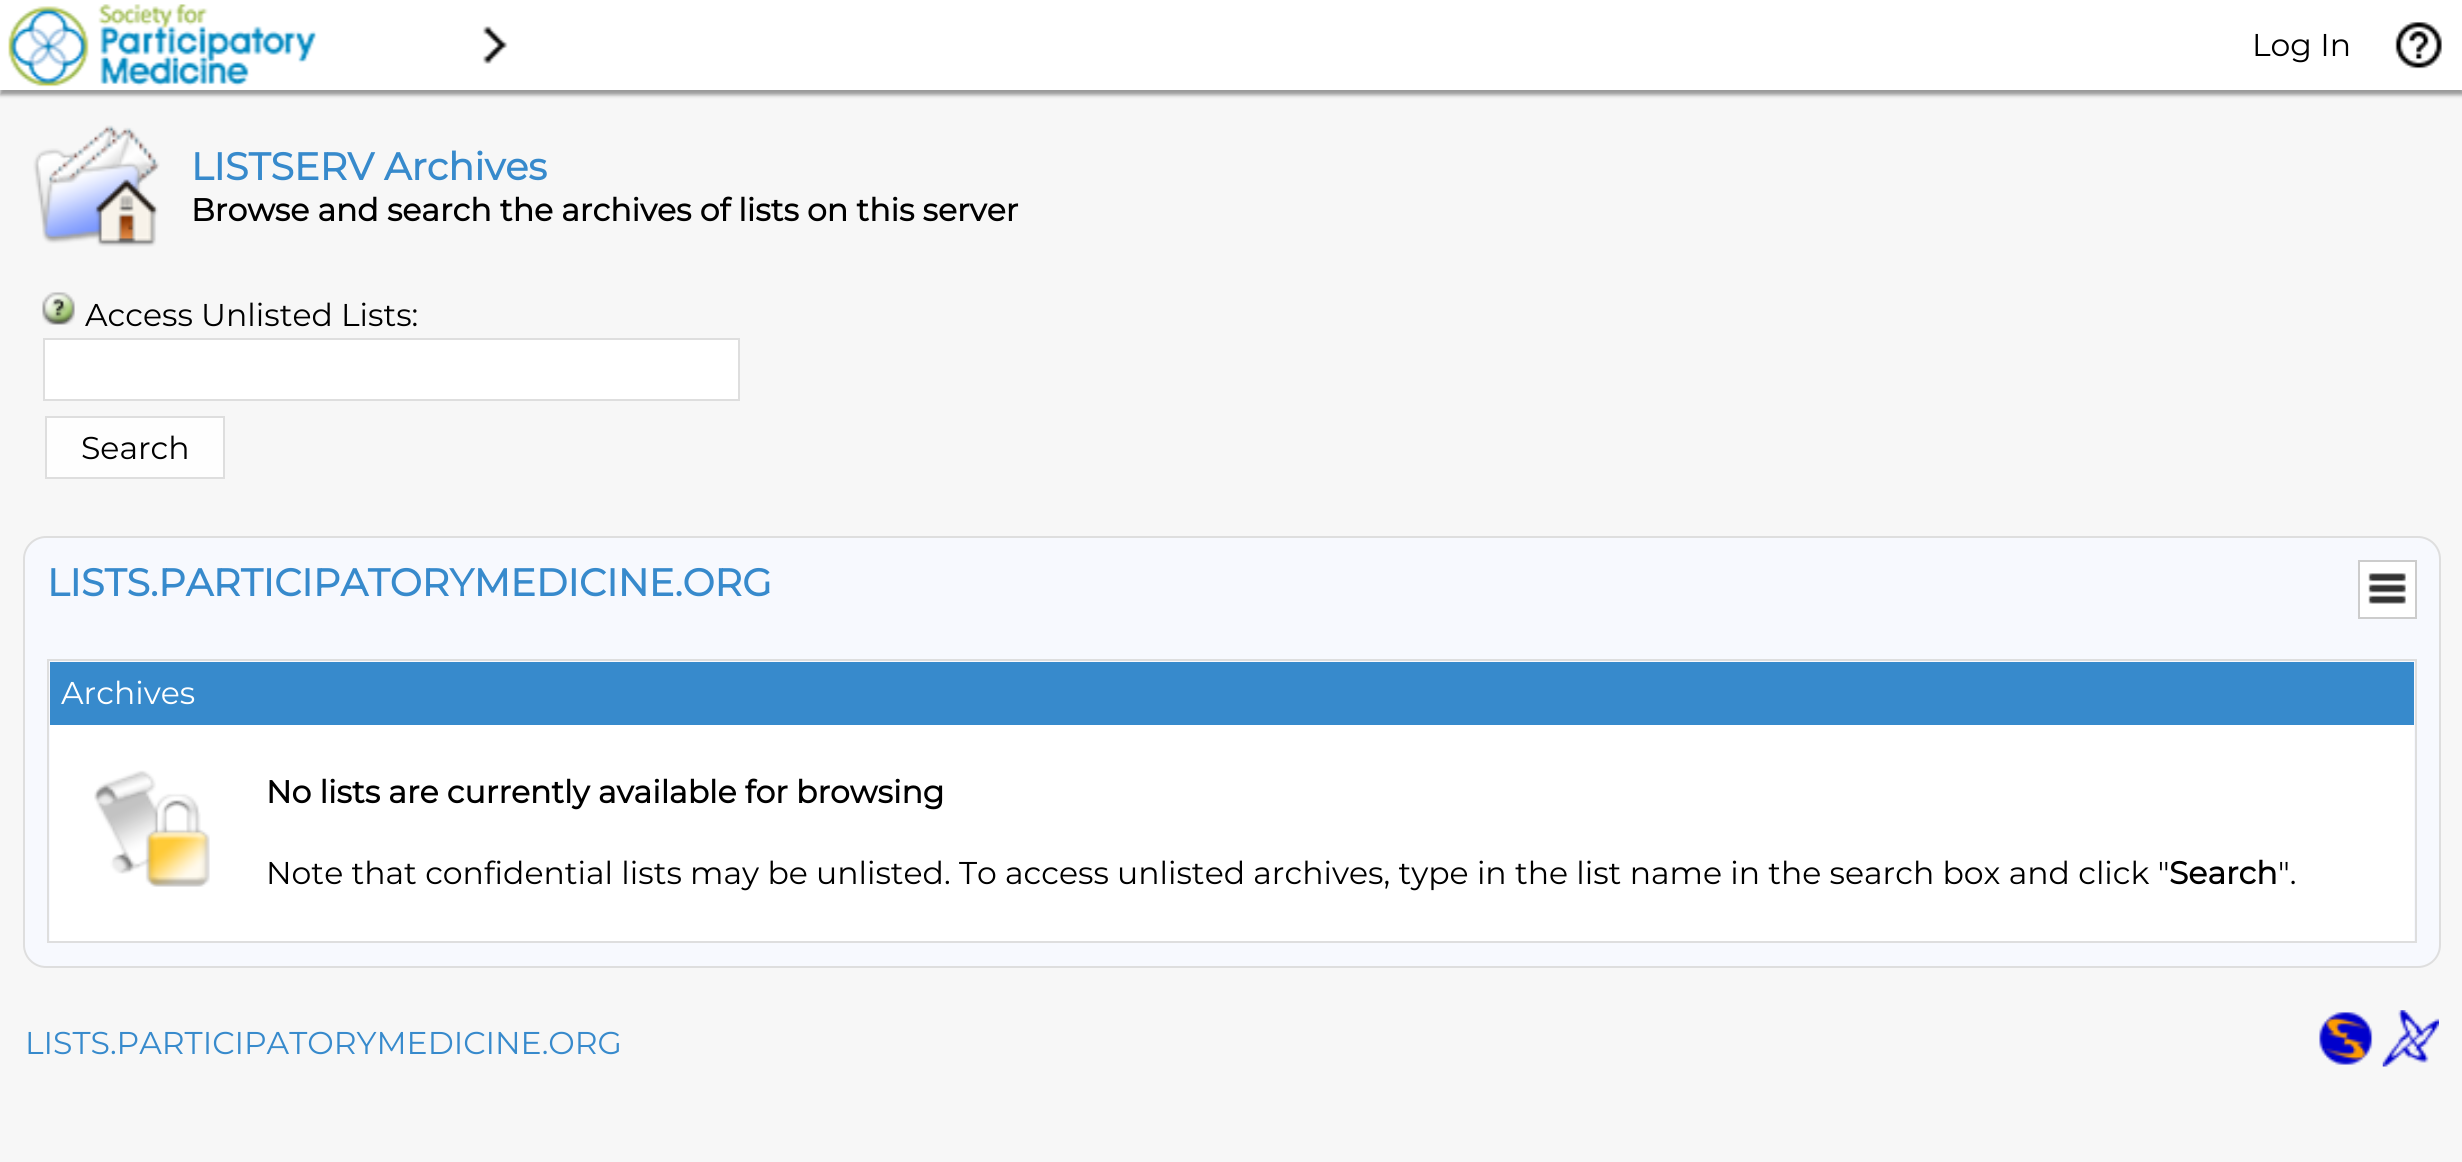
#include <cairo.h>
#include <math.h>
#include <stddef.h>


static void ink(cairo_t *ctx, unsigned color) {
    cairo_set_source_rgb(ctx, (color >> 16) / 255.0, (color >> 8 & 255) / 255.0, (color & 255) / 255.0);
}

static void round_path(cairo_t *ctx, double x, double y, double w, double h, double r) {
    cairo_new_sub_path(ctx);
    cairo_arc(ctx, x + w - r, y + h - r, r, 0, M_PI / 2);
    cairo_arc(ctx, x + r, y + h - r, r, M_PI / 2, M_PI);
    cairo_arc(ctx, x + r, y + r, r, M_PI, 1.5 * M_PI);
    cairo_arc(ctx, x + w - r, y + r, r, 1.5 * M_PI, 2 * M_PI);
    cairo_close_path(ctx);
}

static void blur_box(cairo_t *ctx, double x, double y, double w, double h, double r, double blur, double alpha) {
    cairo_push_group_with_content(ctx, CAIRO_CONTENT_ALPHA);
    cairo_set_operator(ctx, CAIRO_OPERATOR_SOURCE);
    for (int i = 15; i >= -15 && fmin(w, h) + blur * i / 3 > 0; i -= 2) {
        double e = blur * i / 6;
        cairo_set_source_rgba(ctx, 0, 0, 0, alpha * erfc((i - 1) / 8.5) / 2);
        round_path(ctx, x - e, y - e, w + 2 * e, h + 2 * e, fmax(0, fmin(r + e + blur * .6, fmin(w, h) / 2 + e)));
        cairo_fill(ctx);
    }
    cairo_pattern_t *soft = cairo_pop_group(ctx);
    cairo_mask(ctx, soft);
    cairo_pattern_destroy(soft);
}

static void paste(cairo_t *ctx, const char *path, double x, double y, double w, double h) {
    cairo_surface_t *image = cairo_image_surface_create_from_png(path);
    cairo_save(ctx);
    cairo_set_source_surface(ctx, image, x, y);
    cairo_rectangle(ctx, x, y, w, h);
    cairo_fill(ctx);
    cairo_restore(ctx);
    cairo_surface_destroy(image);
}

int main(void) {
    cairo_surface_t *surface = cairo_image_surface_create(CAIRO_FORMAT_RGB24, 2462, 1162);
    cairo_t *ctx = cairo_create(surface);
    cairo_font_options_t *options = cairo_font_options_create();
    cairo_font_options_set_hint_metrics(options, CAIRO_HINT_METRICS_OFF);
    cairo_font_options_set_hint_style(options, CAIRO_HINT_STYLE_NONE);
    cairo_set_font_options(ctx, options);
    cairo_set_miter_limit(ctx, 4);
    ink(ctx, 0xF7F7F7);
    cairo_paint(ctx);
    ink(ctx, 0x999999);
    blur_box(ctx, 0, 5, 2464, 90, 0, 2, 1);
    ink(ctx, 0xFFFFFF);
    cairo_rectangle(ctx, 0, 0, 2462, 90);
    cairo_fill(ctx);
    paste(ctx, "media/1.png", 8, 4, 309, 83);
    paste(ctx, "media/2.png", 482, 26, 26, 38);
    cairo_select_font_face(ctx, "Montserrat Thin", CAIRO_FONT_SLANT_NORMAL, CAIRO_FONT_WEIGHT_NORMAL);
    cairo_set_font_size(ctx, 31.5);
    ink(ctx, 0x000000);
    cairo_move_to(ctx, 2252, 56);
    cairo_show_text(ctx, "Log In");
    paste(ctx, "media/3.png", 2395, 22, 47, 47);
    paste(ctx, "media/4.png", 33, 125, 127, 122);
    cairo_select_font_face(ctx, "Montserrat", CAIRO_FONT_SLANT_NORMAL, CAIRO_FONT_WEIGHT_BOLD);
    cairo_set_font_size(ctx, 38.25);
    ink(ctx, 0x378ACC);
    cairo_move_to(ctx, 191, 180);
    cairo_show_text(ctx, "LISTSERV Archives");
    cairo_set_font_size(ctx, 31.5);
    ink(ctx, 0x000000);
    cairo_move_to(ctx, 191, 221);
    cairo_show_text(ctx, "Browse and search the archives of lists on this server");
    paste(ctx, "media/5.png", 42, 292, 33, 33);
    cairo_select_font_face(ctx, "Montserrat Thin", CAIRO_FONT_SLANT_NORMAL, CAIRO_FONT_WEIGHT_NORMAL);
    cairo_move_to(ctx, 85, 326);
    cairo_show_text(ctx, "Access Unlisted Lists:");
    ink(ctx, 0xFFFFFF);
    cairo_rectangle(ctx, 44, 339, 695, 61);
    cairo_fill_preserve(ctx);
    ink(ctx, 0xDEDEDE);
    cairo_stroke(ctx);
    ink(ctx, 0xFEFEFE);
    cairo_rectangle(ctx, 46, 417, 178, 61);
    cairo_fill_preserve(ctx);
    ink(ctx, 0xDEDEDE);
    cairo_stroke(ctx);
    ink(ctx, 0x000000);
    cairo_move_to(ctx, 81, 459);
    cairo_show_text(ctx, "Search");
    ink(ctx, 0xF7F9FE);
    round_path(ctx, 24, 537, 2416, 430, 22);
    cairo_fill_preserve(ctx);
    ink(ctx, 0xDEDEDE);
    cairo_stroke(ctx);
    cairo_select_font_face(ctx, "Montserrat", CAIRO_FONT_SLANT_NORMAL, CAIRO_FONT_WEIGHT_BOLD);
    cairo_set_font_size(ctx, 38.25);
    ink(ctx, 0x378ACC);
    cairo_move_to(ctx, 47, 596);
    cairo_show_text(ctx, "LISTS.PARTICIPATORYMEDICINE.ORG");
    ink(ctx, 0xFFFFFF);
    cairo_rectangle(ctx, 2359, 561, 57, 57);
    cairo_fill_preserve(ctx);
    ink(ctx, 0xCCCCCC);
    cairo_stroke(ctx);
    paste(ctx, "media/6.png", 2368, 573, 38, 31);
    cairo_rectangle(ctx, 48, 660, 2368, 282);
    ink(ctx, 0xDEDEDE);
    cairo_stroke(ctx);
    ink(ctx, 0x378ACC);
    cairo_rectangle(ctx, 50, 662, 2364, 63);
    cairo_fill(ctx);
    cairo_select_font_face(ctx, "Montserrat Thin", CAIRO_FONT_SLANT_NORMAL, CAIRO_FONT_WEIGHT_NORMAL);
    cairo_set_font_size(ctx, 31.5);
    ink(ctx, 0xFFFFFF);
    cairo_move_to(ctx, 61, 704);
    cairo_show_text(ctx, "Archives");
    cairo_rectangle(ctx, 50, 725, 2364, 216);
    cairo_fill(ctx);
    paste(ctx, "media/7.png", 94, 770, 116, 117);
    cairo_select_font_face(ctx, "Montserrat", CAIRO_FONT_SLANT_NORMAL, CAIRO_FONT_WEIGHT_BOLD);
    ink(ctx, 0x000000);
    cairo_move_to(ctx, 266, 803);
    cairo_show_text(ctx, "No lists are currently available for browsing");
    cairo_select_font_face(ctx, "Montserrat Thin", CAIRO_FONT_SLANT_NORMAL, CAIRO_FONT_WEIGHT_NORMAL);
    cairo_move_to(ctx, 266, 884);
    cairo_show_text(ctx, "Note that confidential lists may be unlisted. To access unlisted archives, type in the list name in the search box and click \"");
    cairo_select_font_face(ctx, "Montserrat", CAIRO_FONT_SLANT_NORMAL, CAIRO_FONT_WEIGHT_BOLD);
    cairo_move_to(ctx, 2169, 884);
    cairo_show_text(ctx, "Search");
    cairo_select_font_face(ctx, "Montserrat Thin", CAIRO_FONT_SLANT_NORMAL, CAIRO_FONT_WEIGHT_NORMAL);
    cairo_move_to(ctx, 2278, 884);
    cairo_show_text(ctx, "\".");
    ink(ctx, 0x378ACC);
    cairo_move_to(ctx, 25, 1054);
    cairo_show_text(ctx, "LISTS.PARTICIPATORYMEDICINE.ORG");
    paste(ctx, "media/8.png", 2319, 1012, 54, 53);
    paste(ctx, "media/9.png", 2382, 1010, 57, 57);
    cairo_surface_write_to_png(surface, "image.png");
    cairo_font_options_destroy(options);
    cairo_destroy(ctx);
    cairo_surface_destroy(surface);
    return 0;
}
